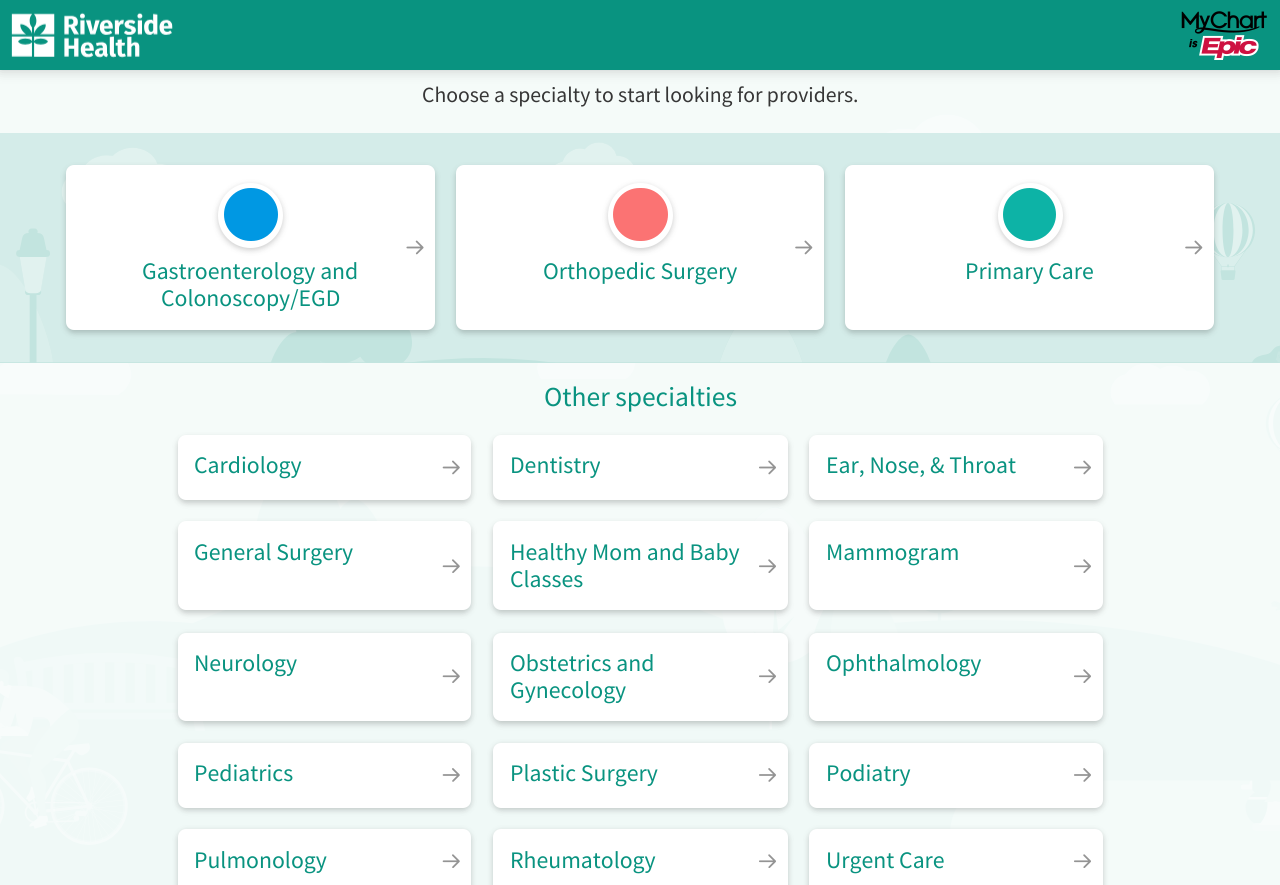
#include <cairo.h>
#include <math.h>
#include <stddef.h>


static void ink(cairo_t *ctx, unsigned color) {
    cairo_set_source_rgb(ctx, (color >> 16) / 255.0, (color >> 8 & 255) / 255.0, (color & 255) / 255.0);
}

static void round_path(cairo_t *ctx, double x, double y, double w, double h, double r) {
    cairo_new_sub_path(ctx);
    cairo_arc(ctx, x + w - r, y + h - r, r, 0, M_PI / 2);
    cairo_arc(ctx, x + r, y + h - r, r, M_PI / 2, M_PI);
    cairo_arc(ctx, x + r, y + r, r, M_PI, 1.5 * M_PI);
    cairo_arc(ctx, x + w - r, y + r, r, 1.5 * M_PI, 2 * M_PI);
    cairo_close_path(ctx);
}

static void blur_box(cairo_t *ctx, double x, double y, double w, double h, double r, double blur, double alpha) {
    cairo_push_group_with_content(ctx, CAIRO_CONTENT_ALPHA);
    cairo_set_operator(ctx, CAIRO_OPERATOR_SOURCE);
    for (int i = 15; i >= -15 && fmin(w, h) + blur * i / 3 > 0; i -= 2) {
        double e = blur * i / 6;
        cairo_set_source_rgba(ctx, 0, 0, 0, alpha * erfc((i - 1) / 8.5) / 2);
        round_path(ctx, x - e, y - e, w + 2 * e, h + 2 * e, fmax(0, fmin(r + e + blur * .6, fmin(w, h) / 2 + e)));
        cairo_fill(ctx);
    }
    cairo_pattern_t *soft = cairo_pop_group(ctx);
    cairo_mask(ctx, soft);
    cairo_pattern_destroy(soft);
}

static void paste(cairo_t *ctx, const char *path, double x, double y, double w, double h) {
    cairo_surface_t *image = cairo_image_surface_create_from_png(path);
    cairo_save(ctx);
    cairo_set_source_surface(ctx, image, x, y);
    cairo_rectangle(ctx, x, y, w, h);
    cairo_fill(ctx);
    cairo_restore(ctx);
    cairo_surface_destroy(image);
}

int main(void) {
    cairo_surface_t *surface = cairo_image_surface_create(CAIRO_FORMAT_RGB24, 1280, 885);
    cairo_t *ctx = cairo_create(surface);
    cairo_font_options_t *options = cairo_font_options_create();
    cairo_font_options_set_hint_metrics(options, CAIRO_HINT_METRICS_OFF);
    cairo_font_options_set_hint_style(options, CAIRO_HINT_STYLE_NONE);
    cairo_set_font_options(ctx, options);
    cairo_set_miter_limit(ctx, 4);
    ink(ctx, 0xF0F9F7);
    cairo_paint(ctx);
    paste(ctx, "media/1.png", 0, 70, 1280, 815);
    ink(ctx, 0x000000);
    blur_box(ctx, 0, 0, 1280, 70, 0, 6.5, 0.2);
    ink(ctx, 0x099380);
    cairo_rectangle(ctx, 0, 0, 1280, 70);
    cairo_fill(ctx);
    paste(ctx, "media/2.png", 11, 12, 162, 46);
    paste(ctx, "media/3.png", 1181, 11, 86, 49);
    cairo_select_font_face(ctx, "Source Sans Pro", CAIRO_FONT_SLANT_NORMAL, CAIRO_FONT_WEIGHT_NORMAL);
    cairo_set_font_size(ctx, 21.7);
    ink(ctx, 0x363636);
    cairo_move_to(ctx, 422, 102);
    cairo_show_text(ctx, "Choose a specialty to start looking for providers.");
    ink(ctx, 0xC2E4DF);
    cairo_rectangle(ctx, 0, 133, 1280, 230);
    cairo_fill(ctx);
    paste(ctx, "media/4.png", 0, 133, 1280, 230);
    ink(ctx, 0x000000);
    blur_box(ctx, 66, 168, 369, 165, 8, 3, 0.2);
    ink(ctx, 0xFFFFFF);
    round_path(ctx, 66, 165, 369, 165, 8);
    cairo_fill(ctx);
    paste(ctx, "media/5.png", 406, 240, 18, 15);
    ink(ctx, 0x000000);
    blur_box(ctx, 218, 185, 65, 65, 32.5, 3, 0.2);
    ink(ctx, 0xFFFFFF);
    cairo_arc(ctx, 250.5, 215.5, 32.5, 0, 2 * M_PI);
    cairo_fill(ctx);
    ink(ctx, 0x0098E3);
    round_path(ctx, 224, 188, 54, 53, 26.5);
    cairo_fill(ctx);
    cairo_set_font_size(ctx, 23.75);
    ink(ctx, 0x099380);
    cairo_move_to(ctx, 142, 279);
    cairo_show_text(ctx, "Gastroenterology and");
    cairo_move_to(ctx, 161, 306);
    cairo_show_text(ctx, "Colonoscopy/EGD");
    ink(ctx, 0x000000);
    blur_box(ctx, 456, 168, 368, 165, 8, 3, 0.2);
    ink(ctx, 0xFFFFFF);
    round_path(ctx, 456, 165, 368, 165, 8);
    cairo_fill(ctx);
    paste(ctx, "media/6.png", 795, 240, 18, 15);
    ink(ctx, 0x000000);
    blur_box(ctx, 608, 185, 65, 65, 32.5, 3, 0.2);
    ink(ctx, 0xFFFFFF);
    cairo_arc(ctx, 640.5, 215.5, 32.5, 0, 2 * M_PI);
    cairo_fill(ctx);
    ink(ctx, 0xFB7373);
    round_path(ctx, 613, 188, 55, 53, 26.5);
    cairo_fill(ctx);
    ink(ctx, 0x099380);
    cairo_move_to(ctx, 543, 279);
    cairo_show_text(ctx, "Orthopedic Surgery");
    ink(ctx, 0x000000);
    blur_box(ctx, 845, 168, 369, 165, 8, 3, 0.2);
    ink(ctx, 0xFFFFFF);
    round_path(ctx, 845, 165, 369, 165, 8);
    cairo_fill(ctx);
    paste(ctx, "media/6.png", 1185, 240, 18, 15);
    ink(ctx, 0x000000);
    blur_box(ctx, 998, 185, 65, 65, 32.5, 3, 0.2);
    ink(ctx, 0xFFFFFF);
    cairo_arc(ctx, 1030.5, 215.5, 32.5, 0, 2 * M_PI);
    cairo_fill(ctx);
    ink(ctx, 0x0DB3A6);
    cairo_arc(ctx, 1029.5, 214.5, 26.5, 0, 2 * M_PI);
    cairo_fill(ctx);
    ink(ctx, 0x099380);
    cairo_move_to(ctx, 965, 279);
    cairo_show_text(ctx, "Primary Care");
    cairo_set_font_size(ctx, 27.5);
    cairo_move_to(ctx, 544, 406);
    cairo_show_text(ctx, "Other specialties");
    ink(ctx, 0x000000);
    blur_box(ctx, 178, 438, 293, 65, 8, 3, 0.2);
    ink(ctx, 0xFFFFFF);
    round_path(ctx, 178, 435, 293, 65, 8);
    cairo_fill(ctx);
    cairo_set_font_size(ctx, 23.75);
    ink(ctx, 0x099380);
    cairo_move_to(ctx, 194, 473);
    cairo_show_text(ctx, "Cardiology");
    paste(ctx, "media/7.png", 442, 460, 18, 15);
    ink(ctx, 0x000000);
    blur_box(ctx, 493, 438, 295, 65, 8, 3, 0.2);
    ink(ctx, 0xFFFFFF);
    round_path(ctx, 493, 435, 295, 65, 8);
    cairo_fill(ctx);
    ink(ctx, 0x099380);
    cairo_move_to(ctx, 510, 473);
    cairo_show_text(ctx, "Dentistry");
    paste(ctx, "media/8.png", 759, 460, 17, 15);
    ink(ctx, 0x000000);
    blur_box(ctx, 809, 438, 294, 65, 8, 3, 0.2);
    ink(ctx, 0xFFFFFF);
    round_path(ctx, 809, 435, 294, 65, 8);
    cairo_fill(ctx);
    ink(ctx, 0x099380);
    cairo_move_to(ctx, 826, 473);
    cairo_show_text(ctx, "Ear, Nose, & Throat");
    paste(ctx, "media/8.png", 1074, 460, 17, 15);
    ink(ctx, 0x000000);
    blur_box(ctx, 178, 524, 293, 89, 8, 3, 0.2);
    ink(ctx, 0xFFFFFF);
    round_path(ctx, 178, 521, 293, 89, 8);
    cairo_fill(ctx);
    ink(ctx, 0x099380);
    cairo_move_to(ctx, 194, 560);
    cairo_show_text(ctx, "General Surgery");
    paste(ctx, "media/9.png", 442, 559, 18, 14);
    ink(ctx, 0x000000);
    blur_box(ctx, 493, 524, 295, 89, 8, 3, 0.2);
    ink(ctx, 0xFFFFFF);
    round_path(ctx, 493, 521, 295, 89, 8);
    cairo_fill(ctx);
    ink(ctx, 0x099380);
    cairo_move_to(ctx, 510, 560);
    cairo_show_text(ctx, "Healthy Mom and Baby");
    cairo_move_to(ctx, 510, 587);
    cairo_show_text(ctx, "Classes");
    paste(ctx, "media/10.png", 759, 559, 17, 14);
    ink(ctx, 0x000000);
    blur_box(ctx, 809, 524, 294, 89, 8, 3, 0.2);
    ink(ctx, 0xFFFFFF);
    round_path(ctx, 809, 521, 294, 89, 8);
    cairo_fill(ctx);
    ink(ctx, 0x099380);
    cairo_move_to(ctx, 826, 560);
    cairo_show_text(ctx, "Mammogram");
    paste(ctx, "media/10.png", 1074, 559, 17, 14);
    ink(ctx, 0x000000);
    blur_box(ctx, 178, 635, 293, 89, 8, 3, 0.2);
    ink(ctx, 0xFFFFFF);
    round_path(ctx, 178, 633, 293, 88, 8);
    cairo_fill(ctx);
    ink(ctx, 0x099380);
    cairo_move_to(ctx, 194, 671);
    cairo_show_text(ctx, "Neurology");
    paste(ctx, "media/9.png", 442, 669, 18, 14);
    ink(ctx, 0x000000);
    blur_box(ctx, 493, 635, 295, 89, 8, 3, 0.2);
    ink(ctx, 0xFFFFFF);
    round_path(ctx, 493, 633, 295, 88, 8);
    cairo_fill(ctx);
    ink(ctx, 0x099380);
    cairo_move_to(ctx, 510, 671);
    cairo_show_text(ctx, "Obstetrics and");
    cairo_move_to(ctx, 510, 698);
    cairo_show_text(ctx, "Gynecology");
    paste(ctx, "media/10.png", 759, 669, 17, 14);
    ink(ctx, 0x000000);
    blur_box(ctx, 809, 635, 294, 89, 8, 3, 0.2);
    ink(ctx, 0xFFFFFF);
    round_path(ctx, 809, 633, 294, 88, 8);
    cairo_fill(ctx);
    ink(ctx, 0x099380);
    cairo_move_to(ctx, 826, 671);
    cairo_show_text(ctx, "Ophthalmology");
    paste(ctx, "media/10.png", 1074, 669, 17, 14);
    ink(ctx, 0x000000);
    blur_box(ctx, 178, 745, 293, 65, 8, 3, 0.2);
    ink(ctx, 0xFFFFFF);
    round_path(ctx, 178, 743, 293, 65, 8);
    cairo_fill(ctx);
    ink(ctx, 0x099380);
    cairo_move_to(ctx, 194, 781);
    cairo_show_text(ctx, "Pediatrics");
    paste(ctx, "media/11.png", 442, 768, 18, 14);
    ink(ctx, 0x000000);
    blur_box(ctx, 493, 745, 295, 65, 8, 3, 0.2);
    ink(ctx, 0xFFFFFF);
    round_path(ctx, 493, 743, 295, 65, 8);
    cairo_fill(ctx);
    ink(ctx, 0x099380);
    cairo_move_to(ctx, 510, 781);
    cairo_show_text(ctx, "Plastic Surgery");
    paste(ctx, "media/12.png", 759, 768, 17, 14);
    ink(ctx, 0x000000);
    blur_box(ctx, 809, 745, 294, 65, 8, 3, 0.2);
    ink(ctx, 0xFFFFFF);
    round_path(ctx, 809, 743, 294, 65, 8);
    cairo_fill(ctx);
    ink(ctx, 0x099380);
    cairo_move_to(ctx, 826, 781);
    cairo_show_text(ctx, "Podiatry");
    paste(ctx, "media/12.png", 1074, 768, 17, 14);
    ink(ctx, 0x000000);
    blur_box(ctx, 178, 831, 293, 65, 8, 3, 0.2);
    ink(ctx, 0xFFFFFF);
    round_path(ctx, 178, 829, 293, 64, 8);
    cairo_fill(ctx);
    ink(ctx, 0x099380);
    cairo_move_to(ctx, 194, 868);
    cairo_show_text(ctx, "Pulmonology");
    paste(ctx, "media/9.png", 442, 854, 18, 14);
    ink(ctx, 0x000000);
    blur_box(ctx, 493, 831, 295, 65, 8, 3, 0.2);
    ink(ctx, 0xFFFFFF);
    round_path(ctx, 493, 829, 295, 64, 8);
    cairo_fill(ctx);
    ink(ctx, 0x099380);
    cairo_move_to(ctx, 510, 868);
    cairo_show_text(ctx, "Rheumatology");
    paste(ctx, "media/10.png", 759, 854, 17, 14);
    ink(ctx, 0x000000);
    blur_box(ctx, 809, 831, 294, 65, 8, 3, 0.2);
    ink(ctx, 0xFFFFFF);
    round_path(ctx, 809, 829, 294, 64, 8);
    cairo_fill(ctx);
    ink(ctx, 0x099380);
    cairo_move_to(ctx, 826, 868);
    cairo_show_text(ctx, "Urgent Care");
    paste(ctx, "media/10.png", 1074, 854, 17, 14);
    cairo_surface_write_to_png(surface, "image.png");
    cairo_font_options_destroy(options);
    cairo_destroy(ctx);
    cairo_surface_destroy(surface);
    return 0;
}
